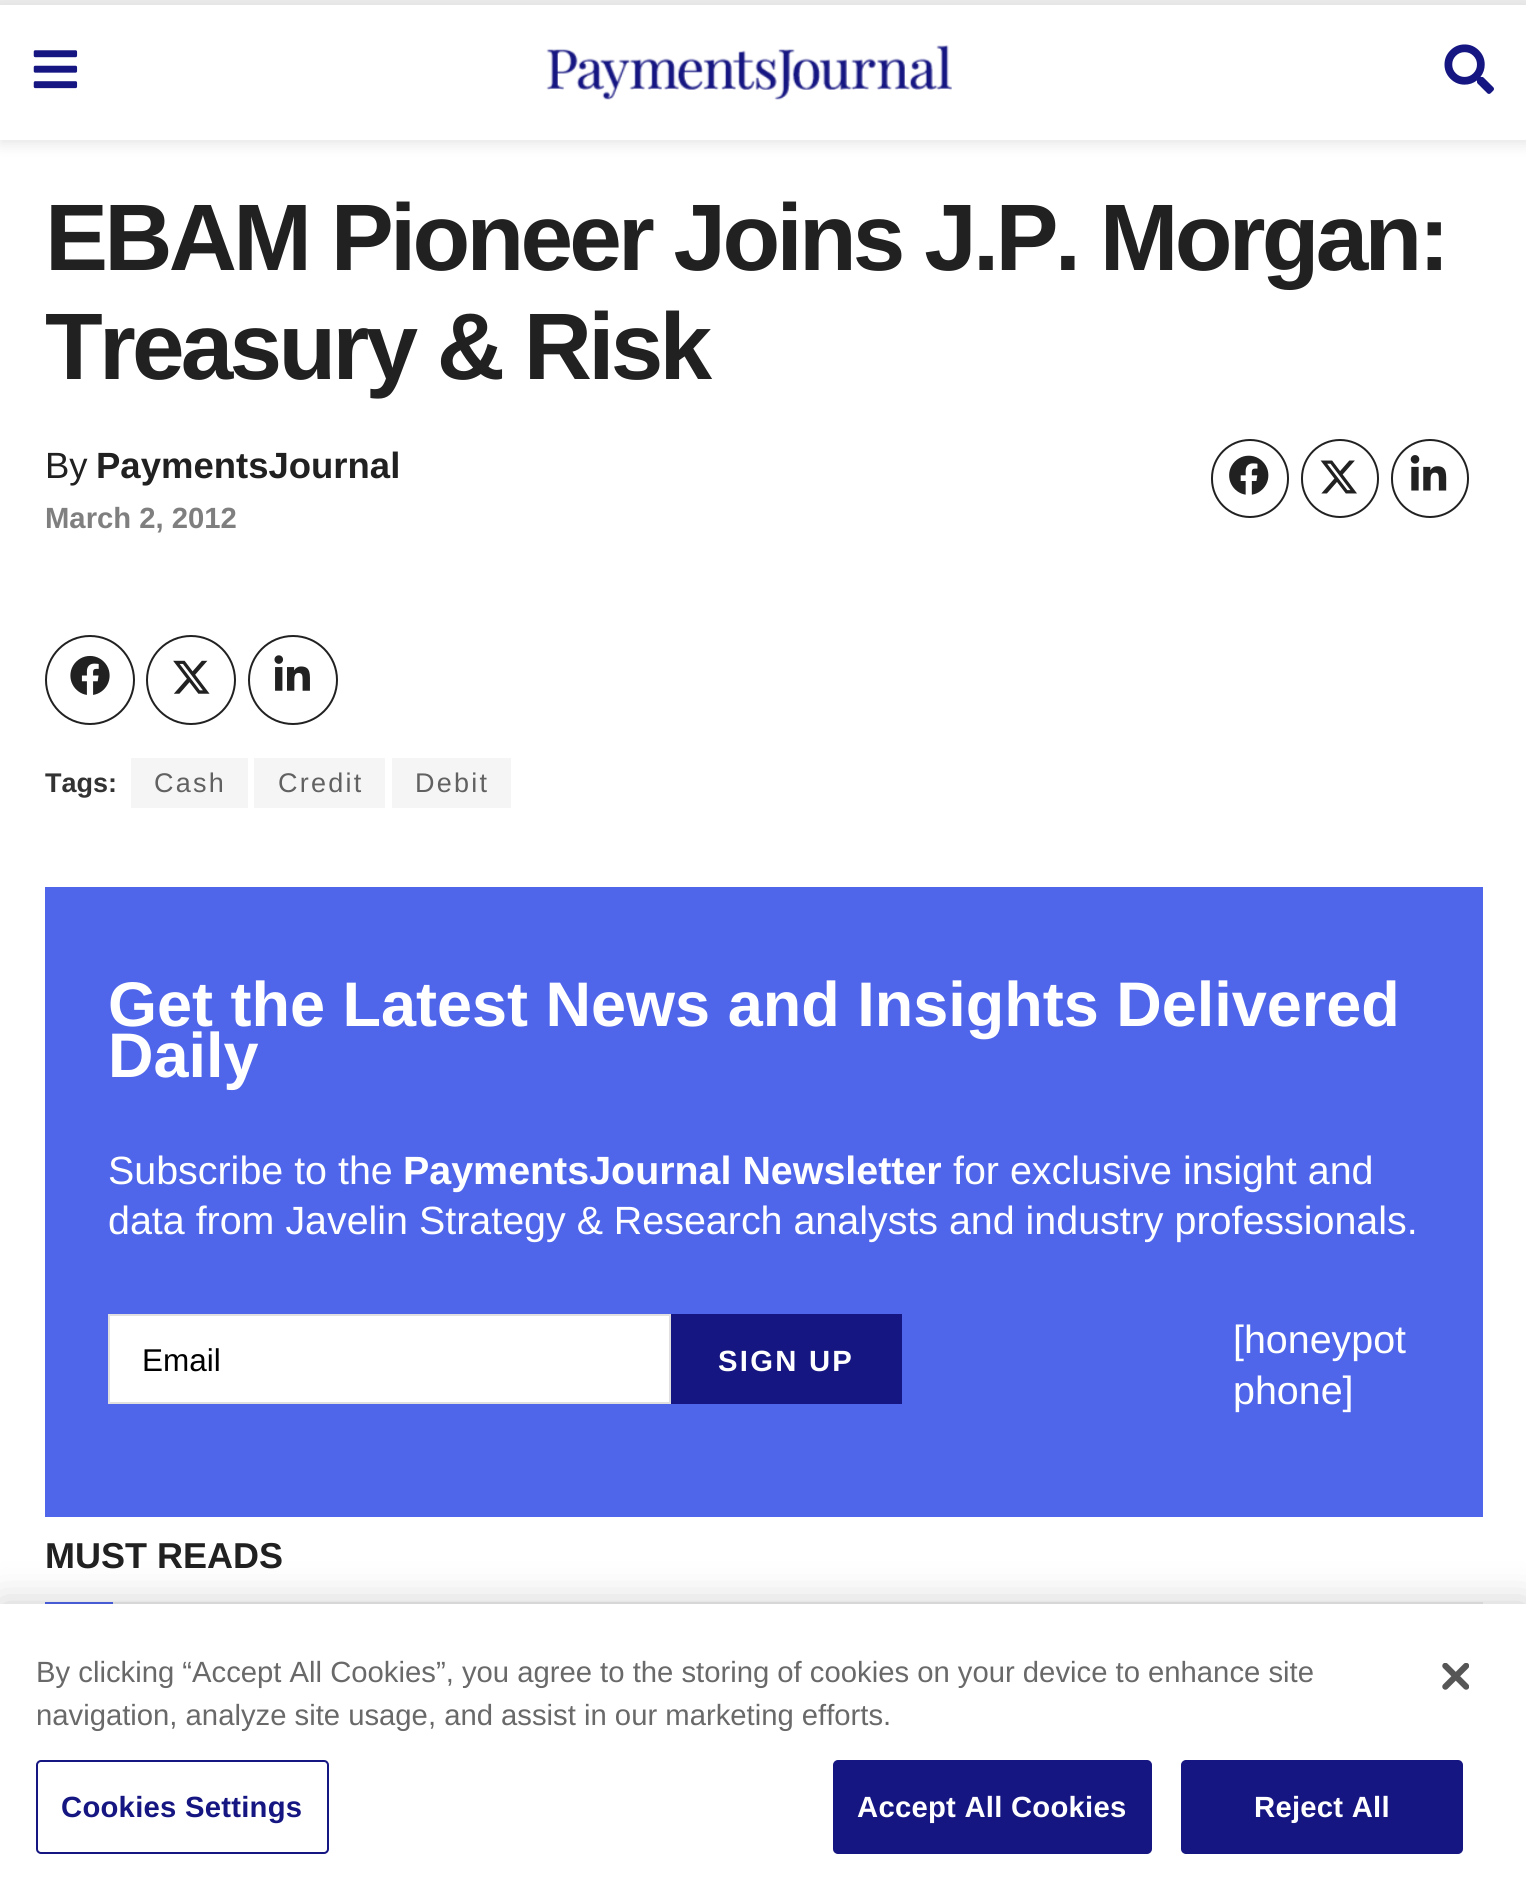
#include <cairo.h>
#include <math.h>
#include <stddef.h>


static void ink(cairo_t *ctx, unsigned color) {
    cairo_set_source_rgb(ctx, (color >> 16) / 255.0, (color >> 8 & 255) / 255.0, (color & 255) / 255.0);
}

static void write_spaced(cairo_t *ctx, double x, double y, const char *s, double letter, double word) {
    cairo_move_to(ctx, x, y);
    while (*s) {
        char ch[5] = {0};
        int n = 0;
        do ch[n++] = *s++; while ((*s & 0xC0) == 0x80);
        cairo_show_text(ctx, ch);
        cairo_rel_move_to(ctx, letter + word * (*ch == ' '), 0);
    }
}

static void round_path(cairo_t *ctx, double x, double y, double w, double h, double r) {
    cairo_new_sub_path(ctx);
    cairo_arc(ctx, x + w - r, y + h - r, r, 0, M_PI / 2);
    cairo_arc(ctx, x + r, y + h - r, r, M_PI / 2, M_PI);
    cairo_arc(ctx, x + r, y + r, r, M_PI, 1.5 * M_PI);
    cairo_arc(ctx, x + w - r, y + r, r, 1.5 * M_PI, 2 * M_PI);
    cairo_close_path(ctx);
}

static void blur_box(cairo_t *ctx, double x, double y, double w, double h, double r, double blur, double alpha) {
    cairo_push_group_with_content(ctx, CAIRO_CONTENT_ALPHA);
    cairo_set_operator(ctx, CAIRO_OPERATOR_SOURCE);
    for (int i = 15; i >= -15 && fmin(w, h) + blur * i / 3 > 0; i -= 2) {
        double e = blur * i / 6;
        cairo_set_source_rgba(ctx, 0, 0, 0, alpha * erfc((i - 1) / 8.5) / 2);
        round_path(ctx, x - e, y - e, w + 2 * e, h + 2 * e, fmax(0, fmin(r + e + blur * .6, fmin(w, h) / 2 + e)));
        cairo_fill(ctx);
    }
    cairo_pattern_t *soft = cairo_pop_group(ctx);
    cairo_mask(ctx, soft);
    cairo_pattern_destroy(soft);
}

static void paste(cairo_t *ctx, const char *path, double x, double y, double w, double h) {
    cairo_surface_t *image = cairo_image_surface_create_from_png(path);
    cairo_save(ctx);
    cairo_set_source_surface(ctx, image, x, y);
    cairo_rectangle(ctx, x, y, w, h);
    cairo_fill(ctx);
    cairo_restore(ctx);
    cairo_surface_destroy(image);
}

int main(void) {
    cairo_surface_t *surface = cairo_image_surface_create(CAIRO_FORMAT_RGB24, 1526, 1899);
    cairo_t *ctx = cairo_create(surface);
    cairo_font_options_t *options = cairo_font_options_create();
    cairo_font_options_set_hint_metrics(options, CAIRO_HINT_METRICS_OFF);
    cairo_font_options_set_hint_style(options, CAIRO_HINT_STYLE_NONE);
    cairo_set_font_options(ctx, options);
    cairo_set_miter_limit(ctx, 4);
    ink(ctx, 0xFFFFFF);
    cairo_paint(ctx);
    ink(ctx, 0xECECEC);
    cairo_rectangle(ctx, 0, 0, 1526, 5);
    cairo_fill(ctx);
    ink(ctx, 0x000000);
    blur_box(ctx, 0, 9, 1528, 135, 0, 7, 0.1);
    ink(ctx, 0xFFFFFF);
    cairo_rectangle(ctx, 0, 5, 1526, 135);
    cairo_fill(ctx);
    paste(ctx, "media/1.png", 33, 50, 45, 39);
    paste(ctx, "media/2.png", 546, 45, 406, 55);
    paste(ctx, "media/3.png", 1444, 44, 50, 50);
    cairo_select_font_face(ctx, "Liberation Sans", CAIRO_FONT_SLANT_NORMAL, CAIRO_FONT_WEIGHT_BOLD);
    cairo_set_font_size(ctx, 94.5);
    ink(ctx, 0x212121);
    write_spaced(ctx, 45, 270, "EBAM Pioneer Joins J.P. Morgan:", -3.75, 0);
    write_spaced(ctx, 45, 379, "Treasury & Risk", -3.75, 0);
    cairo_select_font_face(ctx, "Liberation Sans", CAIRO_FONT_SLANT_NORMAL, CAIRO_FONT_WEIGHT_NORMAL);
    cairo_set_font_size(ctx, 36.5);
    cairo_move_to(ctx, 45, 478);
    cairo_show_text(ctx, "By");
    cairo_select_font_face(ctx, "Liberation Sans", CAIRO_FONT_SLANT_NORMAL, CAIRO_FONT_WEIGHT_BOLD);
    cairo_move_to(ctx, 96, 478);
    cairo_show_text(ctx, "PaymentsJournal");
    cairo_set_font_size(ctx, 29.25);
    ink(ctx, 0x7F7F7F);
    cairo_move_to(ctx, 45, 528);
    cairo_show_text(ctx, "March 2, 2012");
    round_path(ctx, 1212, 440, 76, 77, 38);
    ink(ctx, 0x212121);
    cairo_stroke(ctx);
    paste(ctx, "media/4.png", 1229, 455, 40, 40);
    round_path(ctx, 1302, 440, 76, 77, 38);
    cairo_stroke(ctx);
    paste(ctx, "media/5.png", 1320, 460, 37, 34);
    round_path(ctx, 1392, 440, 76, 77, 38);
    cairo_stroke(ctx);
    paste(ctx, "media/6.png", 1410, 455, 37, 36);
    cairo_arc(ctx, 90, 680, 44, 0, 2 * M_PI);
    cairo_stroke(ctx);
    paste(ctx, "media/7.png", 70, 655, 40, 40);
    cairo_arc(ctx, 191, 680, 44, 0, 2 * M_PI);
    cairo_stroke(ctx);
    paste(ctx, "media/8.png", 173, 660, 37, 34);
    cairo_arc(ctx, 293, 680, 44, 0, 2 * M_PI);
    cairo_stroke(ctx);
    paste(ctx, "media/9.png", 274, 655, 36, 36);
    cairo_set_font_size(ctx, 27);
    ink(ctx, 0x333333);
    cairo_move_to(ctx, 45, 792);
    cairo_show_text(ctx, "Tags:");
    ink(ctx, 0xF5F5F5);
    cairo_rectangle(ctx, 131, 758, 117, 50);
    cairo_fill(ctx);
    cairo_select_font_face(ctx, "Liberation Sans", CAIRO_FONT_SLANT_NORMAL, CAIRO_FONT_WEIGHT_NORMAL);
    ink(ctx, 0x616161);
    write_spaced(ctx, 154, 792, "Cash", 2.25, 0);
    ink(ctx, 0xF5F5F5);
    cairo_rectangle(ctx, 254, 758, 131, 50);
    cairo_fill(ctx);
    ink(ctx, 0x616161);
    write_spaced(ctx, 278, 792, "Credit", 2.25, 0);
    ink(ctx, 0xF5F5F5);
    cairo_rectangle(ctx, 392, 758, 119, 50);
    cairo_fill(ctx);
    ink(ctx, 0x616161);
    write_spaced(ctx, 415, 792, "Debit", 2.25, 0);
    ink(ctx, 0x4F66EB);
    cairo_rectangle(ctx, 45, 887, 1438, 630);
    cairo_fill(ctx);
    cairo_select_font_face(ctx, "Liberation Sans", CAIRO_FONT_SLANT_NORMAL, CAIRO_FONT_WEIGHT_BOLD);
    cairo_set_font_size(ctx, 63);
    ink(ctx, 0xFFFFFF);
    cairo_move_to(ctx, 108, 1026);
    cairo_show_text(ctx, "Get the Latest News and Insights Delivered");
    cairo_move_to(ctx, 108, 1077);
    cairo_show_text(ctx, "Daily");
    cairo_select_font_face(ctx, "Liberation Sans", CAIRO_FONT_SLANT_NORMAL, CAIRO_FONT_WEIGHT_NORMAL);
    cairo_set_font_size(ctx, 39.4);
    cairo_move_to(ctx, 108, 1184);
    cairo_show_text(ctx, "Subscribe to the");
    cairo_select_font_face(ctx, "Liberation Sans", CAIRO_FONT_SLANT_NORMAL, CAIRO_FONT_WEIGHT_BOLD);
    cairo_move_to(ctx, 403, 1184);
    cairo_show_text(ctx, "PaymentsJournal Newsletter");
    cairo_select_font_face(ctx, "Liberation Sans", CAIRO_FONT_SLANT_NORMAL, CAIRO_FONT_WEIGHT_NORMAL);
    cairo_move_to(ctx, 953, 1184);
    cairo_show_text(ctx, "for exclusive insight and");
    cairo_move_to(ctx, 108, 1234);
    cairo_show_text(ctx, "data from Javelin Strategy & Research analysts and industry professionals.");
    cairo_rectangle(ctx, 109, 1315, 561, 88);
    cairo_fill_preserve(ctx);
    ink(ctx, 0xE0E0E0);
    cairo_stroke(ctx);
    cairo_set_font_size(ctx, 31.5);
    ink(ctx, 0x000000);
    cairo_move_to(ctx, 142, 1371);
    cairo_show_text(ctx, "Email");
    ink(ctx, 0x161682);
    cairo_rectangle(ctx, 671, 1314, 231, 90);
    cairo_fill(ctx);
    cairo_select_font_face(ctx, "Liberation Sans", CAIRO_FONT_SLANT_NORMAL, CAIRO_FONT_WEIGHT_BOLD);
    cairo_set_font_size(ctx, 29.25);
    ink(ctx, 0xFFFFFF);
    write_spaced(ctx, 718, 1371, "SIGN UP", 2.25, 0);
    cairo_select_font_face(ctx, "Liberation Sans", CAIRO_FONT_SLANT_NORMAL, CAIRO_FONT_WEIGHT_NORMAL);
    cairo_set_font_size(ctx, 39.4);
    cairo_move_to(ctx, 1233, 1353);
    cairo_show_text(ctx, "[honeypot");
    cairo_move_to(ctx, 1233, 1404);
    cairo_show_text(ctx, "phone]");
    ink(ctx, 0xEEEEEE);
    cairo_rectangle(ctx, 113, 1602, 1370, 2);
    cairo_fill(ctx);
    cairo_select_font_face(ctx, "Liberation Sans", CAIRO_FONT_SLANT_NORMAL, CAIRO_FONT_WEIGHT_BOLD);
    cairo_set_font_size(ctx, 36);
    ink(ctx, 0x212121);
    cairo_move_to(ctx, 45, 1568);
    cairo_show_text(ctx, "MUST READS");
    ink(ctx, 0x4F66EB);
    cairo_rectangle(ctx, 45, 1602, 68, 2);
    cairo_fill(ctx);
    ink(ctx, 0x000000);
    blur_box(ctx, 0, 1604, 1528, 295, 0, 20, 0.2);
    ink(ctx, 0xFFFFFF);
    cairo_rectangle(ctx, 0, 1604, 1526, 295);
    cairo_fill(ctx);
    cairo_select_font_face(ctx, "Liberation Sans", CAIRO_FONT_SLANT_NORMAL, CAIRO_FONT_WEIGHT_NORMAL);
    cairo_set_font_size(ctx, 29.25);
    ink(ctx, 0x696969);
    cairo_move_to(ctx, 36, 1682);
    cairo_show_text(ctx, "By clicking “Accept All Cookies”, you agree to the storing of cookies on your device to enhance site");
    cairo_move_to(ctx, 36, 1725);
    cairo_show_text(ctx, "navigation, analyze site usage, and assist in our marketing efforts.");
    round_path(ctx, 37, 1761, 291, 92, 4);
    ink(ctx, 0x161682);
    cairo_stroke(ctx);
    cairo_select_font_face(ctx, "Liberation Sans", CAIRO_FONT_SLANT_NORMAL, CAIRO_FONT_WEIGHT_BOLD);
    write_spaced(ctx, 61, 1817, "Cookies Settings", 0.25, 0);
    round_path(ctx, 834, 1761, 317, 92, 4);
    cairo_fill_preserve(ctx);
    cairo_stroke(ctx);
    ink(ctx, 0xFFFFFF);
    write_spaced(ctx, 857, 1817, "Accept All Cookies", 0.25, 0);
    ink(ctx, 0x161682);
    round_path(ctx, 1182, 1761, 280, 92, 4);
    cairo_fill_preserve(ctx);
    cairo_stroke(ctx);
    ink(ctx, 0xFFFFFF);
    write_spaced(ctx, 1254, 1817, "Reject All", 0.25, 0);
    paste(ctx, "media/10.png", 1442, 1663, 27, 27);
    cairo_surface_write_to_png(surface, "image.png");
    cairo_font_options_destroy(options);
    cairo_destroy(ctx);
    cairo_surface_destroy(surface);
    return 0;
}
